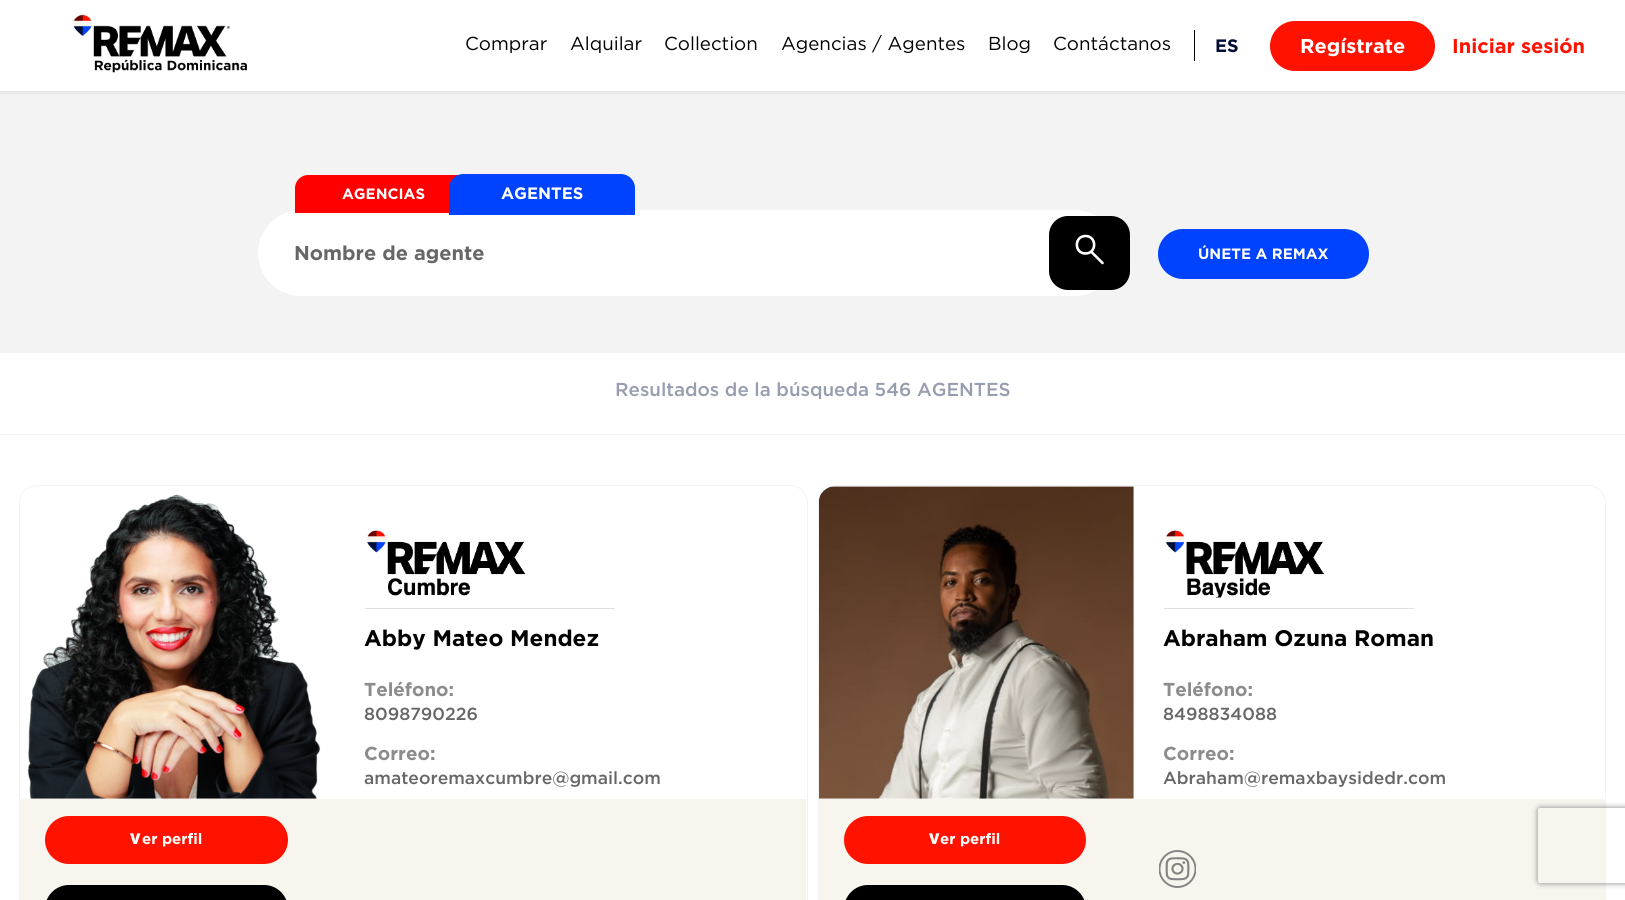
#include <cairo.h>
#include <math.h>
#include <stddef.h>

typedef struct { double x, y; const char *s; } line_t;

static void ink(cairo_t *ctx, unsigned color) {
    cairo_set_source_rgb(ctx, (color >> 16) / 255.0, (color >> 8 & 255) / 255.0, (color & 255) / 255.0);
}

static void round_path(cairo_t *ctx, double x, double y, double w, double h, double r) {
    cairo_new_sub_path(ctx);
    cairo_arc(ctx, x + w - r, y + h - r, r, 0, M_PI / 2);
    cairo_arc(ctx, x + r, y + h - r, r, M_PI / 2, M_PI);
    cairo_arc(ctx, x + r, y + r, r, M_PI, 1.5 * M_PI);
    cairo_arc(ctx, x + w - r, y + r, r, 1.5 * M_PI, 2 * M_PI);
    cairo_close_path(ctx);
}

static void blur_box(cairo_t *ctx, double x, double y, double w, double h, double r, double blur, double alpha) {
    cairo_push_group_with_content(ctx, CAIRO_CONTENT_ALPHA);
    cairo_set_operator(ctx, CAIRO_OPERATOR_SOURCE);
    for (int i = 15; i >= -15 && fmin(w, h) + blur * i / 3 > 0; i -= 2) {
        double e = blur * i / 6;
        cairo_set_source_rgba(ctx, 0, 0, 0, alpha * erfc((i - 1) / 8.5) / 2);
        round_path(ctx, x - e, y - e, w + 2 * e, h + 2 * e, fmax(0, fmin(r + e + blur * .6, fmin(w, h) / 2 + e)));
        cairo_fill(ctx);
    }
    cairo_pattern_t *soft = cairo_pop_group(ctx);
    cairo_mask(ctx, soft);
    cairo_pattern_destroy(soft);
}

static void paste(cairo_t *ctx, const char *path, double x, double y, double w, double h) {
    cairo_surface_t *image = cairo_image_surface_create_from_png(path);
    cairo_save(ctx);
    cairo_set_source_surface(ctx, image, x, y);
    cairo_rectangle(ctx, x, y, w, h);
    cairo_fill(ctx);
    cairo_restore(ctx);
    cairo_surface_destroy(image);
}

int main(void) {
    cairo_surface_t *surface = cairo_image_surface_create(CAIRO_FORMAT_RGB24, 1625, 900);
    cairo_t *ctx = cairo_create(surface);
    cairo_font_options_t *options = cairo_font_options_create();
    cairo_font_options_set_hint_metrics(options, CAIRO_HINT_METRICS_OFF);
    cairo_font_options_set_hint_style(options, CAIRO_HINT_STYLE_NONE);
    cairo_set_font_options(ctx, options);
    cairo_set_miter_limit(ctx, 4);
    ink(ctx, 0xFFFFFF);
    cairo_paint(ctx);
    ink(ctx, 0xF3F3F4);
    cairo_rectangle(ctx, 0, 91, 1625, 262);
    cairo_fill(ctx);
    ink(ctx, 0x000000);
    blur_box(ctx, 0, 3, 1625, 91, 0, 1, 0.05);
    ink(ctx, 0xFFFFFF);
    cairo_rectangle(ctx, 0, 2, 1625, 89);
    cairo_fill(ctx);
    paste(ctx, "media/1.png", 73, 14, 174, 59);
    cairo_select_font_face(ctx, "Gotham", CAIRO_FONT_SLANT_NORMAL, CAIRO_FONT_WEIGHT_NORMAL);
    cairo_set_font_size(ctx, 18.75);
    ink(ctx, 0x000000);
    {
        static const line_t items[] = {
            {465, 50, "Comprar"},
            {570, 50, "Alquilar"},
            {664, 50, "Collection"},
            {781, 50, "Agencias / Agentes"},
            {988, 50, "Blog"},
            {1053, 50, "Contáctanos"},
        };
        for (size_t i = 0; i < sizeof items / sizeof *items; i++) {
            cairo_move_to(ctx, items[i].x, items[i].y);
            cairo_show_text(ctx, items[i].s);
        }
    }
    cairo_rectangle(ctx, 1194, 30, 1, 31);
    cairo_fill(ctx);
    cairo_select_font_face(ctx, "Gotham", CAIRO_FONT_SLANT_NORMAL, CAIRO_FONT_WEIGHT_BOLD);
    cairo_set_font_size(ctx, 18);
    ink(ctx, 0x000E35);
    cairo_move_to(ctx, 1215, 52);
    cairo_show_text(ctx, "ES");
    ink(ctx, 0xFF1200);
    round_path(ctx, 1270, 21, 165, 50, 25);
    cairo_fill(ctx);
    cairo_set_font_size(ctx, 20);
    ink(ctx, 0xFFFFFF);
    cairo_move_to(ctx, 1300, 53);
    cairo_show_text(ctx, "Regístrate");
    ink(ctx, 0xFF1200);
    cairo_move_to(ctx, 1452, 53);
    cairo_show_text(ctx, "Iniciar sesión");
    ink(ctx, 0xFFFFFF);
    round_path(ctx, 258, 210, 860, 86, 43);
    cairo_fill(ctx);
    ink(ctx, 0xFF0000);
    cairo_new_path(ctx);
    cairo_move_to(ctx, 308, 175);
    cairo_line_to(ctx, 460, 175);
    cairo_curve_to(ctx, 467, 175, 473, 181, 473, 188);
    cairo_line_to(ctx, 473, 213);
    cairo_line_to(ctx, 295, 213);
    cairo_line_to(ctx, 295, 188);
    cairo_curve_to(ctx, 295, 181, 301, 175, 308, 175);
    cairo_close_path(ctx);
    cairo_fill(ctx);
    cairo_set_font_size(ctx, 15);
    ink(ctx, 0xFFFFFF);
    cairo_move_to(ctx, 342, 199);
    cairo_show_text(ctx, "AGENCIAS");
    ink(ctx, 0x0043FF);
    cairo_new_path(ctx);
    cairo_move_to(ctx, 463, 174);
    cairo_line_to(ctx, 621, 174);
    cairo_curve_to(ctx, 628.5, 174, 635, 180.5, 635, 188);
    cairo_line_to(ctx, 635, 215);
    cairo_line_to(ctx, 449, 215);
    cairo_line_to(ctx, 449, 188);
    cairo_curve_to(ctx, 449, 180.5, 455.5, 174, 463, 174);
    cairo_close_path(ctx);
    cairo_fill(ctx);
    cairo_set_font_size(ctx, 16.5);
    ink(ctx, 0xFFFFFF);
    cairo_move_to(ctx, 501, 199);
    cairo_show_text(ctx, "AGENTES");
    cairo_set_font_size(ctx, 20);
    ink(ctx, 0x676767);
    cairo_move_to(ctx, 294, 260);
    cairo_show_text(ctx, "Nombre de agente");
    ink(ctx, 0x000000);
    round_path(ctx, 1049, 216, 81, 74, 19);
    cairo_fill(ctx);
    cairo_new_path(ctx);
    cairo_move_to(ctx, 1085.5, 253.5);
    cairo_curve_to(ctx, 1097, 253.5, 1097, 236, 1085.5, 236);
    cairo_curve_to(ctx, 1074, 236, 1074, 253.5, 1085.5, 253.5);
    cairo_close_path(ctx);
    cairo_move_to(ctx, 1091, 251.5);
    cairo_line_to(ctx, 1102.5, 263);
    ink(ctx, 0xFFFFFF);
    cairo_set_line_width(ctx, 2.6);
    cairo_set_line_cap(ctx, CAIRO_LINE_CAP_ROUND);
    cairo_stroke(ctx);
    ink(ctx, 0x0043FF);
    round_path(ctx, 1158, 229, 211, 50, 25);
    cairo_fill(ctx);
    cairo_set_font_size(ctx, 15);
    ink(ctx, 0xFFFFFF);
    cairo_move_to(ctx, 1198, 259);
    cairo_show_text(ctx, "ÚNETE A REMAX");
    cairo_select_font_face(ctx, "Gotham Medium", CAIRO_FONT_SLANT_NORMAL, CAIRO_FONT_WEIGHT_NORMAL);
    cairo_set_font_size(ctx, 18.75);
    ink(ctx, 0x969DAF);
    cairo_move_to(ctx, 615, 396);
    cairo_show_text(ctx, "Resultados de la búsqueda 546 AGENTES");
    ink(ctx, 0xF3F3F4);
    cairo_rectangle(ctx, 0, 434, 1625, 1);
    cairo_fill(ctx);
    round_path(ctx, 19.5, 485.5, 788, 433, 17.5);
    cairo_set_line_width(ctx, 1);
    cairo_set_line_cap(ctx, CAIRO_LINE_CAP_BUTT);
    cairo_stroke(ctx);
    paste(ctx, "media/2.png", 21, 491, 300, 308);
    paste(ctx, "media/3.png", 367, 530, 158, 66);
    ink(ctx, 0xE0E0E0);
    cairo_rectangle(ctx, 365, 608, 250, 1);
    cairo_fill(ctx);
    cairo_select_font_face(ctx, "Gotham", CAIRO_FONT_SLANT_NORMAL, CAIRO_FONT_WEIGHT_BOLD);
    cairo_set_font_size(ctx, 22.5);
    ink(ctx, 0x000000);
    cairo_move_to(ctx, 364, 646);
    cairo_show_text(ctx, "Abby Mateo Mendez");
    cairo_set_font_size(ctx, 18.75);
    ink(ctx, 0x8C8C8C);
    cairo_move_to(ctx, 364, 696);
    cairo_show_text(ctx, "Teléfono:");
    cairo_select_font_face(ctx, "Gotham Medium", CAIRO_FONT_SLANT_NORMAL, CAIRO_FONT_WEIGHT_NORMAL);
    cairo_set_font_size(ctx, 17.5);
    ink(ctx, 0x676767);
    cairo_move_to(ctx, 364, 720);
    cairo_show_text(ctx, "8098790226");
    cairo_select_font_face(ctx, "Gotham", CAIRO_FONT_SLANT_NORMAL, CAIRO_FONT_WEIGHT_BOLD);
    cairo_set_font_size(ctx, 18.75);
    ink(ctx, 0x8C8C8C);
    cairo_move_to(ctx, 364, 760);
    cairo_show_text(ctx, "Correo:");
    cairo_select_font_face(ctx, "Gotham Medium", CAIRO_FONT_SLANT_NORMAL, CAIRO_FONT_WEIGHT_NORMAL);
    cairo_set_font_size(ctx, 17.5);
    ink(ctx, 0x676767);
    cairo_move_to(ctx, 364, 784);
    cairo_show_text(ctx, "amateoremaxcumbre@gmail.com");
    ink(ctx, 0xF7F5EE);
    cairo_rectangle(ctx, 20, 799, 786, 101);
    cairo_fill(ctx);
    ink(ctx, 0xFF1200);
    round_path(ctx, 45, 816, 243, 48, 24);
    cairo_fill(ctx);
    cairo_select_font_face(ctx, "Noto Sans Black", CAIRO_FONT_SLANT_NORMAL, CAIRO_FONT_WEIGHT_NORMAL);
    cairo_set_font_size(ctx, 15);
    ink(ctx, 0xFFFFFF);
    cairo_move_to(ctx, 130, 844);
    cairo_show_text(ctx, "V");
    cairo_select_font_face(ctx, "Gotham", CAIRO_FONT_SLANT_NORMAL, CAIRO_FONT_WEIGHT_BOLD);
    cairo_move_to(ctx, 142, 844);
    cairo_show_text(ctx, "er perfil");
    ink(ctx, 0x000000);
    round_path(ctx, 45, 885, 243, 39, 24);
    cairo_fill(ctx);
    round_path(ctx, 818.5, 485.5, 787, 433, 17.5);
    ink(ctx, 0xF3F3F4);
    cairo_stroke(ctx);
    paste(ctx, "media/4.png", 819, 486, 315, 313);
    paste(ctx, "media/5.png", 1165, 530, 159, 68);
    ink(ctx, 0xE0E0E0);
    cairo_rectangle(ctx, 1164, 608, 250, 1);
    cairo_fill(ctx);
    cairo_set_font_size(ctx, 22.5);
    ink(ctx, 0x000000);
    cairo_move_to(ctx, 1163, 646);
    cairo_show_text(ctx, "Abraham Ozuna Roman");
    cairo_set_font_size(ctx, 18.75);
    ink(ctx, 0x8C8C8C);
    cairo_move_to(ctx, 1163, 696);
    cairo_show_text(ctx, "Teléfono:");
    cairo_select_font_face(ctx, "Gotham Medium", CAIRO_FONT_SLANT_NORMAL, CAIRO_FONT_WEIGHT_NORMAL);
    cairo_set_font_size(ctx, 17.5);
    ink(ctx, 0x676767);
    cairo_move_to(ctx, 1163, 720);
    cairo_show_text(ctx, "8498834088");
    cairo_select_font_face(ctx, "Gotham", CAIRO_FONT_SLANT_NORMAL, CAIRO_FONT_WEIGHT_BOLD);
    cairo_set_font_size(ctx, 18.75);
    ink(ctx, 0x8C8C8C);
    cairo_move_to(ctx, 1163, 760);
    cairo_show_text(ctx, "Correo:");
    cairo_select_font_face(ctx, "Gotham Medium", CAIRO_FONT_SLANT_NORMAL, CAIRO_FONT_WEIGHT_NORMAL);
    cairo_set_font_size(ctx, 17.5);
    ink(ctx, 0x676767);
    cairo_move_to(ctx, 1163, 784);
    cairo_show_text(ctx, "Abraham@remaxbaysidedr.com");
    ink(ctx, 0xF7F5EE);
    cairo_rectangle(ctx, 819, 799, 786, 101);
    cairo_fill(ctx);
    ink(ctx, 0xFF1200);
    round_path(ctx, 844, 816, 242, 48, 24);
    cairo_fill(ctx);
    cairo_select_font_face(ctx, "Noto Sans Black", CAIRO_FONT_SLANT_NORMAL, CAIRO_FONT_WEIGHT_NORMAL);
    cairo_set_font_size(ctx, 15);
    ink(ctx, 0xFFFFFF);
    cairo_move_to(ctx, 929, 844);
    cairo_show_text(ctx, "V");
    cairo_select_font_face(ctx, "Gotham", CAIRO_FONT_SLANT_NORMAL, CAIRO_FONT_WEIGHT_BOLD);
    cairo_move_to(ctx, 940, 844);
    cairo_show_text(ctx, "er perfil");
    ink(ctx, 0x000000);
    round_path(ctx, 844, 885, 242, 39, 24);
    cairo_fill(ctx);
    paste(ctx, "media/6.png", 1159, 850, 37, 38);
    cairo_save(ctx);
    cairo_set_fill_rule(ctx, CAIRO_FILL_RULE_EVEN_ODD);
    cairo_new_path(ctx);
    cairo_move_to(ctx, 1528, 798);
    cairo_line_to(ctx, 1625, 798);
    cairo_line_to(ctx, 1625, 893);
    cairo_line_to(ctx, 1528, 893);
    cairo_close_path(ctx);
    cairo_move_to(ctx, 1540.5, 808);
    cairo_line_to(ctx, 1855.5, 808);
    cairo_curve_to(ctx, 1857, 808, 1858, 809, 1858, 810.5);
    cairo_line_to(ctx, 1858, 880.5);
    cairo_curve_to(ctx, 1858, 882, 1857, 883, 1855.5, 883);
    cairo_line_to(ctx, 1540.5, 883);
    cairo_curve_to(ctx, 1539, 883, 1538, 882, 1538, 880.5);
    cairo_line_to(ctx, 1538, 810.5);
    cairo_curve_to(ctx, 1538, 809, 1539, 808, 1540.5, 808);
    cairo_close_path(ctx);
    cairo_clip(ctx);
    ink(ctx, 0x808080);
    blur_box(ctx, 1538, 808, 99, 75, 2.5, 3, 1);
    cairo_restore(ctx);
    cairo_surface_write_to_png(surface, "image.png");
    cairo_font_options_destroy(options);
    cairo_destroy(ctx);
    cairo_surface_destroy(surface);
    return 0;
}
